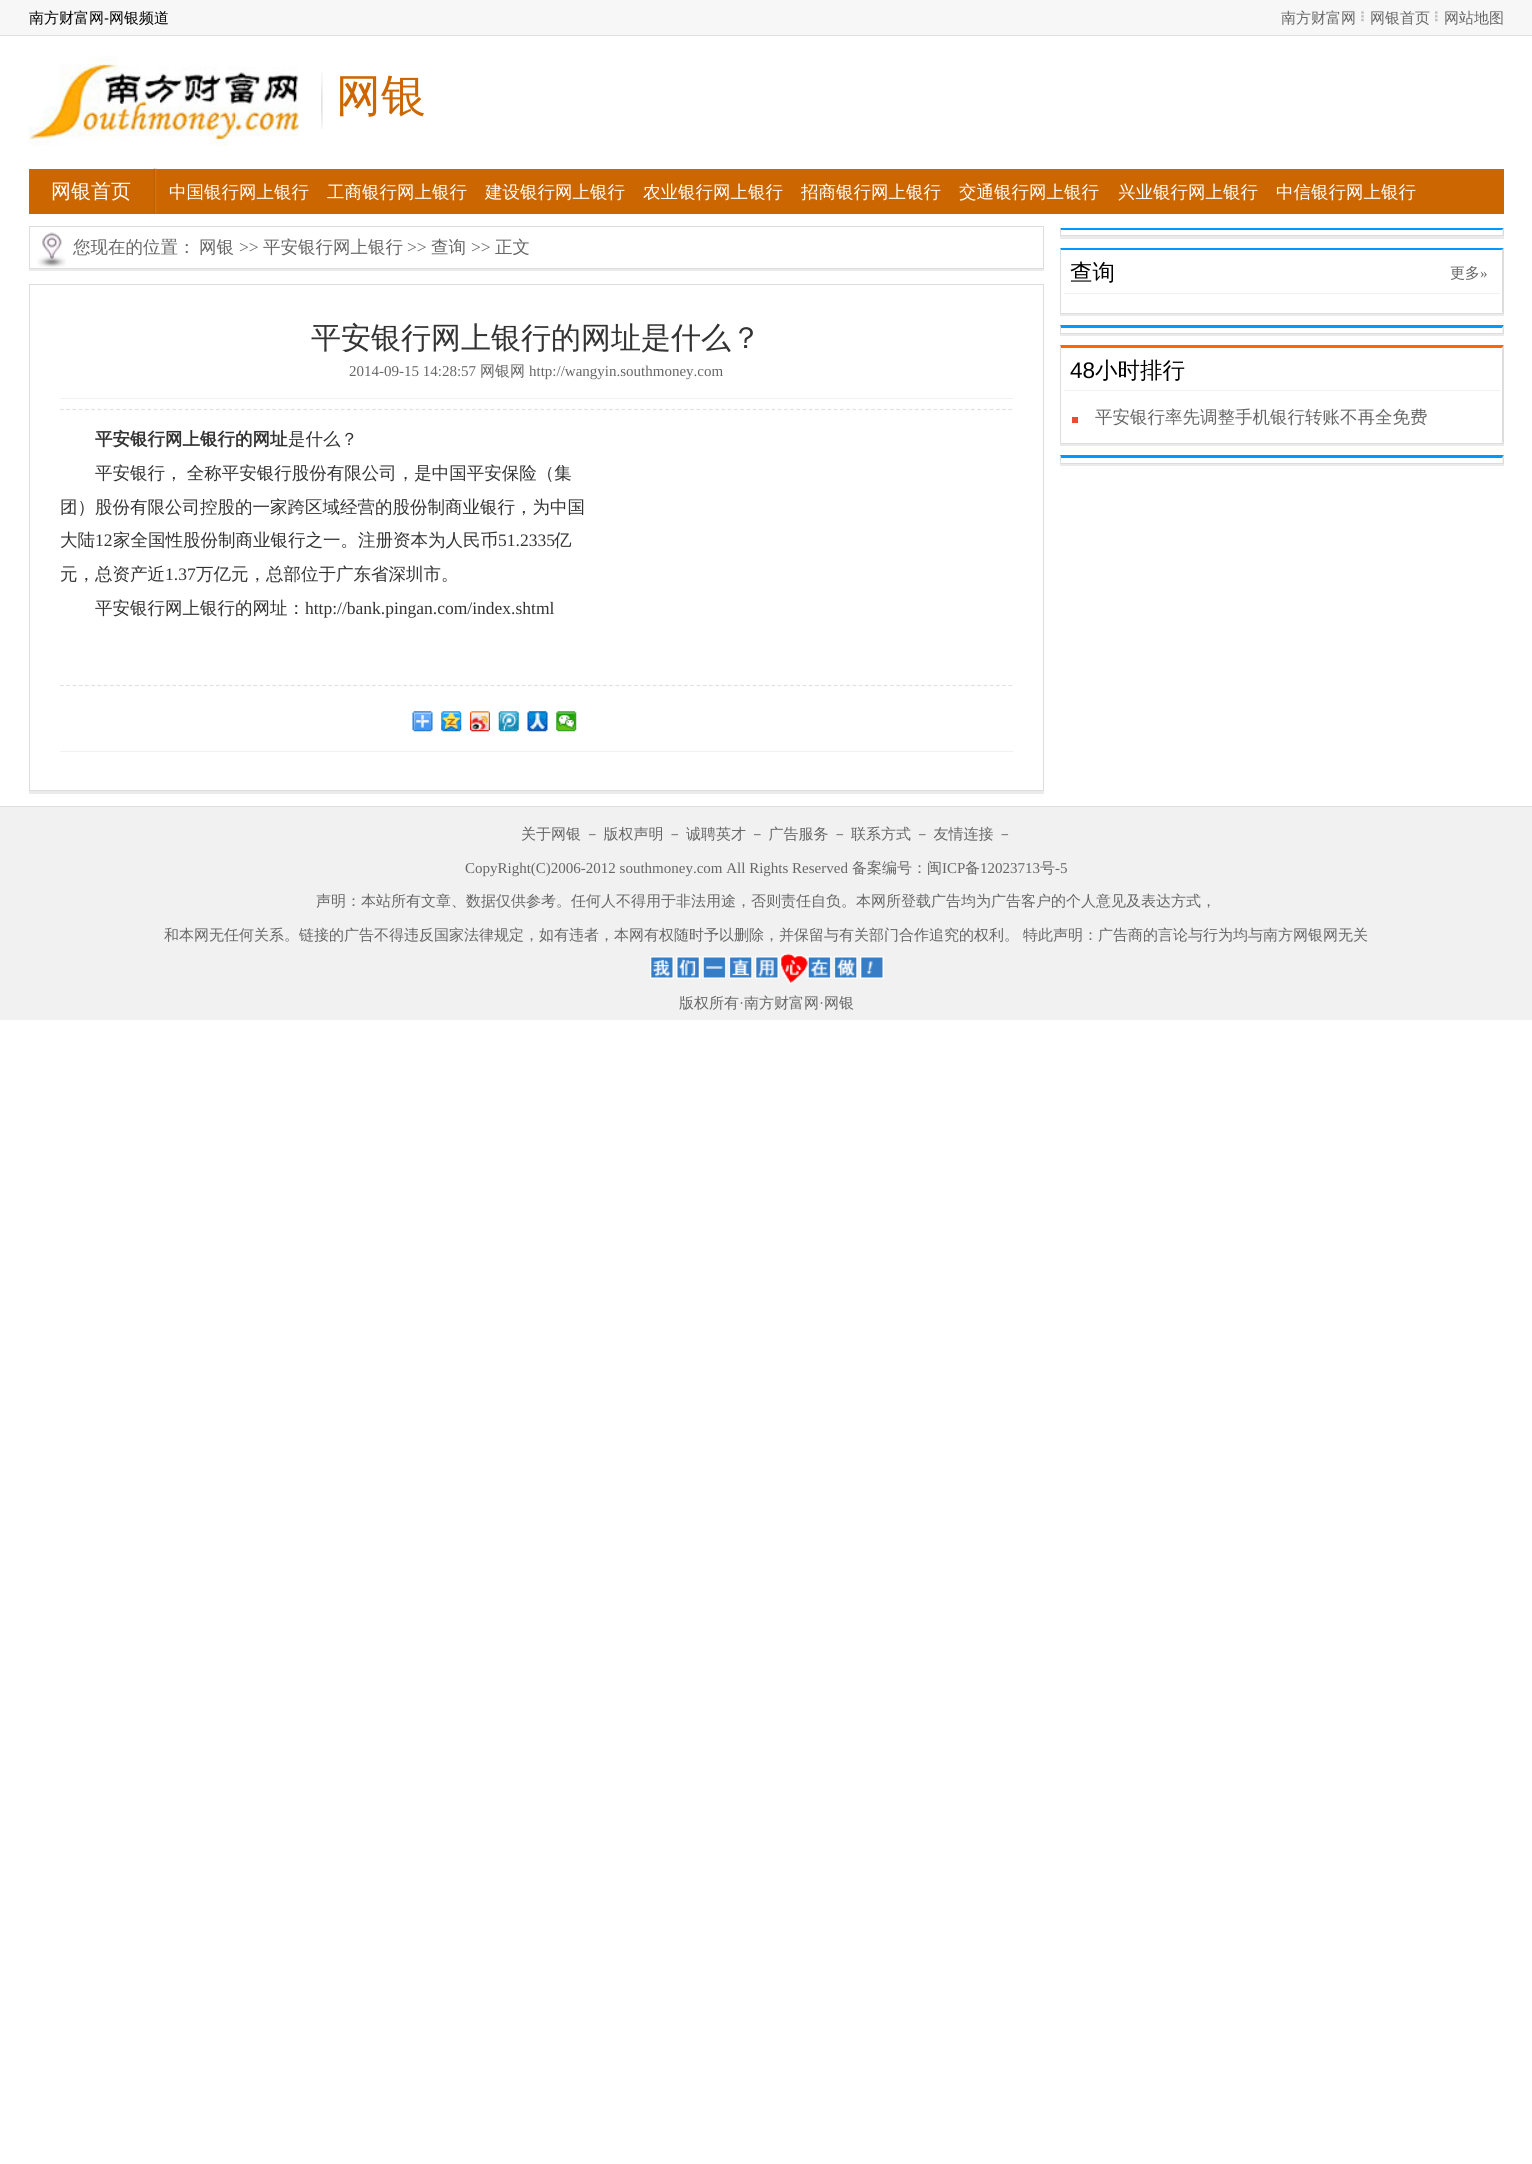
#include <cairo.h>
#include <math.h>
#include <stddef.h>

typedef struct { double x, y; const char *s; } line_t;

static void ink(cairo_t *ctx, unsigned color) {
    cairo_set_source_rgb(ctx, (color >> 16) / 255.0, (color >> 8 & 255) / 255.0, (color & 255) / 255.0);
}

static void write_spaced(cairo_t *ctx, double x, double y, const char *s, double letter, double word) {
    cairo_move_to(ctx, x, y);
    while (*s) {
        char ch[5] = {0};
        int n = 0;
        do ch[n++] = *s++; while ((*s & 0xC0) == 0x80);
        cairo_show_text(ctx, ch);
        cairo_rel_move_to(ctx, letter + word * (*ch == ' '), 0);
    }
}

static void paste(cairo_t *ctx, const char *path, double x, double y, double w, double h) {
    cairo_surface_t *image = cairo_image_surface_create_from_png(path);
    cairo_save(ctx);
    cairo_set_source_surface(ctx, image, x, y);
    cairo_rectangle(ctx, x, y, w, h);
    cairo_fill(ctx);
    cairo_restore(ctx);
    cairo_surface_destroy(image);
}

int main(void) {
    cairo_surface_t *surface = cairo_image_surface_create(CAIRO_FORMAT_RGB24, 1532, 2164);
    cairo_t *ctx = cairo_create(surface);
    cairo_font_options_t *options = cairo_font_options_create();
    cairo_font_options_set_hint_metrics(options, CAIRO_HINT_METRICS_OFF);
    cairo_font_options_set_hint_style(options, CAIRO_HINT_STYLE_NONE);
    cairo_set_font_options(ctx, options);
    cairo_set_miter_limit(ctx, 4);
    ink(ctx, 0xFFFFFF);
    cairo_paint(ctx);
    ink(ctx, 0xF7F7F7);
    cairo_rectangle(ctx, 0, 0, 1532, 35);
    cairo_fill(ctx);
    ink(ctx, 0xDFDFDF);
    cairo_rectangle(ctx, 0, 35, 1532, 1);
    cairo_fill(ctx);
    cairo_select_font_face(ctx, "WenQuanYi Zen Hei Medium", CAIRO_FONT_SLANT_NORMAL, CAIRO_FONT_WEIGHT_NORMAL);
    cairo_set_font_size(ctx, 15);
    ink(ctx, 0x000000);
    cairo_move_to(ctx, 29, 23);
    cairo_show_text(ctx, "南方财富网");
    cairo_select_font_face(ctx, "Liberation Sans", CAIRO_FONT_SLANT_NORMAL, CAIRO_FONT_WEIGHT_NORMAL);
    cairo_move_to(ctx, 104, 23);
    cairo_show_text(ctx, "-");
    cairo_select_font_face(ctx, "WenQuanYi Zen Hei Medium", CAIRO_FONT_SLANT_NORMAL, CAIRO_FONT_WEIGHT_NORMAL);
    cairo_move_to(ctx, 109, 23);
    cairo_show_text(ctx, "网银频道");
    ink(ctx, 0x666666);
    cairo_move_to(ctx, 1281, 23);
    cairo_show_text(ctx, "南方财富网");
    paste(ctx, "media/1.png", 1361, 11, 3, 11);
    cairo_move_to(ctx, 1370, 23);
    cairo_show_text(ctx, "网银首页");
    paste(ctx, "media/2.png", 1435, 11, 3, 11);
    cairo_move_to(ctx, 1444, 23);
    cairo_show_text(ctx, "网站地图");
    paste(ctx, "media/3.png", 28, 56, 271, 90);
    paste(ctx, "media/4.png", 321, 71, 2, 58);
    cairo_set_font_size(ctx, 45);
    ink(ctx, 0xCC6600);
    cairo_move_to(ctx, 336, 111);
    cairo_show_text(ctx, "网银");
    cairo_rectangle(ctx, 29, 169, 1475, 45);
    cairo_fill(ctx);
    cairo_set_font_size(ctx, 20);
    ink(ctx, 0xFFFFFF);
    cairo_move_to(ctx, 51, 198);
    cairo_show_text(ctx, "网银首页");
    paste(ctx, "media/5.png", 153, 168, 4, 46);
    cairo_set_font_size(ctx, 17.5);
    {
        static const line_t items[] = {
            {169, 198, "中国银行网上银行"},
            {327, 198, "工商银行网上银行"},
            {485, 198, "建设银行网上银行"},
            {643, 198, "农业银行网上银行"},
            {801, 198, "招商银行网上银行"},
            {959, 198, "交通银行网上银行"},
            {1118, 198, "兴业银行网上银行"},
            {1276, 198, "中信银行网上银行"},
        };
        for (size_t i = 0; i < sizeof items / sizeof *items; i++) {
            cairo_move_to(ctx, items[i].x, items[i].y);
            cairo_show_text(ctx, items[i].s);
        }
    }
    ink(ctx, 0xEBEBEB);
    cairo_new_path(ctx);
    cairo_move_to(ctx, 29, 269);
    cairo_line_to(ctx, 29, 271);
    cairo_line_to(ctx, 1044, 271);
    cairo_line_to(ctx, 1044, 229);
    cairo_line_to(ctx, 1044, 269);
    cairo_close_path(ctx);
    cairo_fill(ctx);
    paste(ctx, "media/6.png", 37, 232, 29, 36);
    cairo_rectangle(ctx, 29.5, 226.5, 1014, 42);
    ink(ctx, 0xDDDDDD);
    cairo_set_line_width(ctx, 1);
    cairo_stroke(ctx);
    ink(ctx, 0x666666);
    cairo_move_to(ctx, 73, 253);
    cairo_show_text(ctx, "您现在的位置：");
    cairo_move_to(ctx, 199, 253);
    cairo_show_text(ctx, "网银");
    cairo_select_font_face(ctx, "Liberation Serif", CAIRO_FONT_SLANT_NORMAL, CAIRO_FONT_WEIGHT_NORMAL);
    cairo_move_to(ctx, 239, 253);
    cairo_show_text(ctx, ">>");
    cairo_select_font_face(ctx, "WenQuanYi Zen Hei Medium", CAIRO_FONT_SLANT_NORMAL, CAIRO_FONT_WEIGHT_NORMAL);
    cairo_move_to(ctx, 263, 253);
    cairo_show_text(ctx, "平安银行网上银行");
    cairo_select_font_face(ctx, "Liberation Serif", CAIRO_FONT_SLANT_NORMAL, CAIRO_FONT_WEIGHT_NORMAL);
    cairo_move_to(ctx, 407, 253);
    cairo_show_text(ctx, ">>");
    cairo_select_font_face(ctx, "WenQuanYi Zen Hei Medium", CAIRO_FONT_SLANT_NORMAL, CAIRO_FONT_WEIGHT_NORMAL);
    cairo_move_to(ctx, 431, 253);
    cairo_show_text(ctx, "查询");
    cairo_select_font_face(ctx, "Liberation Serif", CAIRO_FONT_SLANT_NORMAL, CAIRO_FONT_WEIGHT_NORMAL);
    cairo_move_to(ctx, 471, 253);
    cairo_show_text(ctx, ">>");
    cairo_select_font_face(ctx, "WenQuanYi Zen Hei Medium", CAIRO_FONT_SLANT_NORMAL, CAIRO_FONT_WEIGHT_NORMAL);
    cairo_move_to(ctx, 495, 253);
    cairo_show_text(ctx, "正文");
    ink(ctx, 0xEBEBEB);
    cairo_new_path(ctx);
    cairo_move_to(ctx, 29, 791);
    cairo_line_to(ctx, 29, 794);
    cairo_line_to(ctx, 1044, 794);
    cairo_line_to(ctx, 1044, 286);
    cairo_line_to(ctx, 1044, 791);
    cairo_close_path(ctx);
    cairo_fill(ctx);
    cairo_rectangle(ctx, 29.5, 284.5, 1014, 506);
    ink(ctx, 0xDDDDDD);
    cairo_stroke(ctx);
    cairo_set_font_size(ctx, 30);
    ink(ctx, 0x333333);
    cairo_move_to(ctx, 311, 348);
    cairo_show_text(ctx, "平安银行网上银行的网址是什么？");
    ink(ctx, 0xF1F1F1);
    cairo_rectangle(ctx, 60, 398, 953, 1);
    cairo_fill(ctx);
    cairo_select_font_face(ctx, "Liberation Serif", CAIRO_FONT_SLANT_NORMAL, CAIRO_FONT_WEIGHT_NORMAL);
    cairo_set_font_size(ctx, 15);
    ink(ctx, 0x666666);
    cairo_move_to(ctx, 349, 376);
    cairo_show_text(ctx, "2014-09-15 14:28:57");
    cairo_select_font_face(ctx, "WenQuanYi Zen Hei Medium", CAIRO_FONT_SLANT_NORMAL, CAIRO_FONT_WEIGHT_NORMAL);
    cairo_move_to(ctx, 480, 376);
    cairo_show_text(ctx, "网银网");
    cairo_select_font_face(ctx, "Liberation Serif", CAIRO_FONT_SLANT_NORMAL, CAIRO_FONT_WEIGHT_NORMAL);
    cairo_move_to(ctx, 529, 376);
    cairo_show_text(ctx, "http://wangyin.southmoney.com");
    cairo_new_path(ctx);
    cairo_move_to(ctx, 60, 409.5);
    cairo_line_to(ctx, 1012.5, 409.5);
    ink(ctx, 0xE1E1E1);
    cairo_set_line_width(ctx, 1.2);
    cairo_set_dash(ctx, (double[]){3.75, 2.49}, 2, 0);
    cairo_stroke(ctx);
    cairo_select_font_face(ctx, "WenQuanYi Zen Hei", CAIRO_FONT_SLANT_NORMAL, CAIRO_FONT_WEIGHT_BOLD);
    cairo_set_font_size(ctx, 17.5);
    ink(ctx, 0x333333);
    cairo_move_to(ctx, 95, 445);
    cairo_show_text(ctx, "平安银行网上银行的网址");
    cairo_select_font_face(ctx, "WenQuanYi Zen Hei Medium", CAIRO_FONT_SLANT_NORMAL, CAIRO_FONT_WEIGHT_NORMAL);
    cairo_move_to(ctx, 288, 445);
    cairo_show_text(ctx, "是什么？");
    write_spaced(ctx, 95, 479, "平安银行， 全称平安银行股份有限公司，是中国平安保险（集", 0, -1);
    cairo_move_to(ctx, 60, 513);
    cairo_show_text(ctx, "团）股份有限公司控股的一家跨区域经营的股份制商业银行，为中国");
    cairo_move_to(ctx, 60, 546);
    cairo_show_text(ctx, "大陆");
    cairo_select_font_face(ctx, "Liberation Serif", CAIRO_FONT_SLANT_NORMAL, CAIRO_FONT_WEIGHT_NORMAL);
    cairo_move_to(ctx, 95, 546);
    cairo_show_text(ctx, "12");
    cairo_select_font_face(ctx, "WenQuanYi Zen Hei Medium", CAIRO_FONT_SLANT_NORMAL, CAIRO_FONT_WEIGHT_NORMAL);
    cairo_move_to(ctx, 113, 546);
    cairo_show_text(ctx, "家全国性股份制商业银行之一。注册资本为人民币");
    cairo_select_font_face(ctx, "Liberation Serif", CAIRO_FONT_SLANT_NORMAL, CAIRO_FONT_WEIGHT_NORMAL);
    cairo_move_to(ctx, 498, 546);
    cairo_show_text(ctx, "51.2335");
    cairo_select_font_face(ctx, "WenQuanYi Zen Hei Medium", CAIRO_FONT_SLANT_NORMAL, CAIRO_FONT_WEIGHT_NORMAL);
    cairo_move_to(ctx, 554, 546);
    cairo_show_text(ctx, "亿");
    cairo_move_to(ctx, 60, 580);
    cairo_show_text(ctx, "元，总资产近");
    cairo_select_font_face(ctx, "Liberation Serif", CAIRO_FONT_SLANT_NORMAL, CAIRO_FONT_WEIGHT_NORMAL);
    cairo_move_to(ctx, 165, 580);
    cairo_show_text(ctx, "1.37");
    cairo_select_font_face(ctx, "WenQuanYi Zen Hei Medium", CAIRO_FONT_SLANT_NORMAL, CAIRO_FONT_WEIGHT_NORMAL);
    cairo_move_to(ctx, 196, 580);
    cairo_show_text(ctx, "万亿元，总部位于广东省深圳市。");
    cairo_move_to(ctx, 95, 614);
    cairo_show_text(ctx, "平安银行网上银行的网址：");
    cairo_select_font_face(ctx, "Liberation Serif", CAIRO_FONT_SLANT_NORMAL, CAIRO_FONT_WEIGHT_NORMAL);
    cairo_move_to(ctx, 305, 614);
    cairo_show_text(ctx, "http://bank.pingan.com/index.shtml");
    cairo_new_path(ctx);
    cairo_move_to(ctx, 60, 685.5);
    cairo_line_to(ctx, 1012.5, 685.5);
    ink(ctx, 0xE1E1E1);
    cairo_stroke(ctx);
    ink(ctx, 0xF1F1F1);
    cairo_rectangle(ctx, 60, 751, 953, 1);
    cairo_fill(ctx);
    paste(ctx, "media/7.png", 412, 711, 21, 21);
    paste(ctx, "media/8.png", 441, 711, 21, 21);
    paste(ctx, "media/9.png", 470, 711, 20, 21);
    paste(ctx, "media/10.png", 498, 711, 21, 21);
    paste(ctx, "media/11.png", 527, 711, 21, 21);
    paste(ctx, "media/12.png", 556, 711, 21, 21);
    ink(ctx, 0xEBEBEB);
    cairo_new_path(ctx);
    cairo_move_to(ctx, 1060, 236);
    cairo_line_to(ctx, 1060, 239);
    cairo_line_to(ctx, 1504, 239);
    cairo_line_to(ctx, 1504, 230);
    cairo_line_to(ctx, 1504, 236);
    cairo_close_path(ctx);
    cairo_fill(ctx);
    ink(ctx, 0x0099FF);
    cairo_new_path(ctx);
    cairo_move_to(ctx, 1060, 228);
    cairo_line_to(ctx, 1504, 228);
    cairo_line_to(ctx, 1502, 230);
    cairo_line_to(ctx, 1061, 230);
    cairo_close_path(ctx);
    cairo_fill(ctx);
    ink(ctx, 0xDDDDDD);
    cairo_new_path(ctx);
    cairo_move_to(ctx, 1504, 227.5);
    cairo_line_to(ctx, 1504, 236);
    cairo_line_to(ctx, 1502.5, 235);
    cairo_line_to(ctx, 1502.5, 230);
    cairo_close_path(ctx);
    cairo_fill(ctx);
    cairo_rectangle(ctx, 1060, 235, 444, 1);
    cairo_fill(ctx);
    cairo_new_path(ctx);
    cairo_move_to(ctx, 1060, 236);
    cairo_line_to(ctx, 1060, 227.5);
    cairo_line_to(ctx, 1061, 230);
    cairo_line_to(ctx, 1061, 235);
    cairo_close_path(ctx);
    cairo_fill(ctx);
    ink(ctx, 0xEBEBEB);
    cairo_new_path(ctx);
    cairo_move_to(ctx, 1060, 314);
    cairo_line_to(ctx, 1060, 316);
    cairo_line_to(ctx, 1504, 316);
    cairo_line_to(ctx, 1504, 250);
    cairo_line_to(ctx, 1504, 314);
    cairo_close_path(ctx);
    cairo_fill(ctx);
    ink(ctx, 0x0099FF);
    cairo_new_path(ctx);
    cairo_move_to(ctx, 1060, 248);
    cairo_line_to(ctx, 1504, 248);
    cairo_line_to(ctx, 1502, 250);
    cairo_line_to(ctx, 1061, 250);
    cairo_close_path(ctx);
    cairo_fill(ctx);
    ink(ctx, 0xDDDDDD);
    cairo_new_path(ctx);
    cairo_move_to(ctx, 1504, 248);
    cairo_line_to(ctx, 1504, 314);
    cairo_line_to(ctx, 1502, 312);
    cairo_line_to(ctx, 1502, 250);
    cairo_close_path(ctx);
    cairo_fill(ctx);
    cairo_rectangle(ctx, 1060, 313, 444, 1);
    cairo_fill(ctx);
    cairo_new_path(ctx);
    cairo_move_to(ctx, 1060, 314);
    cairo_line_to(ctx, 1060, 248);
    cairo_line_to(ctx, 1061, 250);
    cairo_line_to(ctx, 1061, 312);
    cairo_close_path(ctx);
    cairo_fill(ctx);
    ink(ctx, 0xF1F1F1);
    cairo_rectangle(ctx, 1064, 293, 436, 1);
    cairo_fill(ctx);
    cairo_select_font_face(ctx, "WenQuanYi Zen Hei Medium", CAIRO_FONT_SLANT_NORMAL, CAIRO_FONT_WEIGHT_NORMAL);
    cairo_set_font_size(ctx, 22.5);
    ink(ctx, 0x000000);
    cairo_move_to(ctx, 1070, 280);
    cairo_show_text(ctx, "查询");
    cairo_set_font_size(ctx, 15);
    ink(ctx, 0x666666);
    cairo_move_to(ctx, 1450, 278);
    cairo_show_text(ctx, "更多");
    cairo_select_font_face(ctx, "Liberation Serif", CAIRO_FONT_SLANT_NORMAL, CAIRO_FONT_WEIGHT_NORMAL);
    cairo_move_to(ctx, 1480, 278);
    cairo_show_text(ctx, "»");
    ink(ctx, 0xEBEBEB);
    cairo_new_path(ctx);
    cairo_move_to(ctx, 1060, 334);
    cairo_line_to(ctx, 1060, 336);
    cairo_line_to(ctx, 1504, 336);
    cairo_line_to(ctx, 1504, 328);
    cairo_line_to(ctx, 1504, 334);
    cairo_close_path(ctx);
    cairo_fill(ctx);
    ink(ctx, 0x0099FF);
    cairo_new_path(ctx);
    cairo_move_to(ctx, 1060, 325);
    cairo_line_to(ctx, 1504, 325);
    cairo_line_to(ctx, 1502, 328);
    cairo_line_to(ctx, 1061, 328);
    cairo_close_path(ctx);
    cairo_fill(ctx);
    ink(ctx, 0xDDDDDD);
    cairo_new_path(ctx);
    cairo_move_to(ctx, 1504, 325);
    cairo_line_to(ctx, 1504, 334);
    cairo_line_to(ctx, 1502.5, 332.5);
    cairo_line_to(ctx, 1502.5, 327.5);
    cairo_close_path(ctx);
    cairo_fill(ctx);
    cairo_rectangle(ctx, 1060, 333, 444, 1);
    cairo_fill(ctx);
    cairo_new_path(ctx);
    cairo_move_to(ctx, 1060, 334);
    cairo_line_to(ctx, 1060, 325);
    cairo_line_to(ctx, 1061, 327.5);
    cairo_line_to(ctx, 1061, 332.5);
    cairo_close_path(ctx);
    cairo_fill(ctx);
    ink(ctx, 0xEBEBEB);
    cairo_new_path(ctx);
    cairo_move_to(ctx, 1060, 444);
    cairo_line_to(ctx, 1060, 446);
    cairo_line_to(ctx, 1504, 446);
    cairo_line_to(ctx, 1504, 348);
    cairo_line_to(ctx, 1504, 444);
    cairo_close_path(ctx);
    cairo_fill(ctx);
    ink(ctx, 0xFF6600);
    cairo_new_path(ctx);
    cairo_move_to(ctx, 1060, 345);
    cairo_line_to(ctx, 1504, 345);
    cairo_line_to(ctx, 1502, 348);
    cairo_line_to(ctx, 1061, 348);
    cairo_close_path(ctx);
    cairo_fill(ctx);
    ink(ctx, 0xDDDDDD);
    cairo_new_path(ctx);
    cairo_move_to(ctx, 1504, 345);
    cairo_line_to(ctx, 1504, 444);
    cairo_line_to(ctx, 1502, 442);
    cairo_line_to(ctx, 1502, 348);
    cairo_close_path(ctx);
    cairo_fill(ctx);
    cairo_rectangle(ctx, 1060, 443, 444, 1);
    cairo_fill(ctx);
    cairo_new_path(ctx);
    cairo_move_to(ctx, 1060, 444);
    cairo_line_to(ctx, 1060, 345);
    cairo_line_to(ctx, 1061, 348);
    cairo_line_to(ctx, 1061, 442);
    cairo_close_path(ctx);
    cairo_fill(ctx);
    ink(ctx, 0xF1F1F1);
    cairo_rectangle(ctx, 1064, 390, 436, 1);
    cairo_fill(ctx);
    cairo_select_font_face(ctx, "Liberation Sans", CAIRO_FONT_SLANT_NORMAL, CAIRO_FONT_WEIGHT_NORMAL);
    cairo_set_font_size(ctx, 22.5);
    ink(ctx, 0x000000);
    cairo_move_to(ctx, 1070, 378);
    cairo_show_text(ctx, "48");
    cairo_select_font_face(ctx, "WenQuanYi Zen Hei Medium", CAIRO_FONT_SLANT_NORMAL, CAIRO_FONT_WEIGHT_NORMAL);
    cairo_move_to(ctx, 1095, 378);
    cairo_show_text(ctx, "小时排行");
    ink(ctx, 0xEA4B35);
    cairo_rectangle(ctx, 1072, 417, 6, 6);
    cairo_fill(ctx);
    cairo_set_font_size(ctx, 17.5);
    ink(ctx, 0x666666);
    cairo_move_to(ctx, 1095, 423);
    cairo_show_text(ctx, "平安银行率先调整手机银行转账不再全免费");
    ink(ctx, 0xEBEBEB);
    cairo_new_path(ctx);
    cairo_move_to(ctx, 1060, 464);
    cairo_line_to(ctx, 1060, 466);
    cairo_line_to(ctx, 1504, 466);
    cairo_line_to(ctx, 1504, 458);
    cairo_line_to(ctx, 1504, 464);
    cairo_close_path(ctx);
    cairo_fill(ctx);
    ink(ctx, 0x0099FF);
    cairo_new_path(ctx);
    cairo_move_to(ctx, 1060, 455);
    cairo_line_to(ctx, 1504, 455);
    cairo_line_to(ctx, 1502, 458);
    cairo_line_to(ctx, 1061, 458);
    cairo_close_path(ctx);
    cairo_fill(ctx);
    ink(ctx, 0xDDDDDD);
    cairo_new_path(ctx);
    cairo_move_to(ctx, 1504, 455);
    cairo_line_to(ctx, 1504, 464);
    cairo_line_to(ctx, 1502.5, 462.5);
    cairo_line_to(ctx, 1502.5, 457.5);
    cairo_close_path(ctx);
    cairo_fill(ctx);
    cairo_rectangle(ctx, 1060, 463, 444, 1);
    cairo_fill(ctx);
    cairo_new_path(ctx);
    cairo_move_to(ctx, 1060, 464);
    cairo_line_to(ctx, 1060, 455);
    cairo_line_to(ctx, 1061, 457.5);
    cairo_line_to(ctx, 1061, 462.5);
    cairo_close_path(ctx);
    cairo_fill(ctx);
    ink(ctx, 0xF1F1F1);
    cairo_rectangle(ctx, 0, 807, 1532, 213);
    cairo_fill(ctx);
    ink(ctx, 0xDDDDDD);
    cairo_rectangle(ctx, 0, 806, 1532, 1);
    cairo_fill(ctx);
    cairo_set_font_size(ctx, 15);
    ink(ctx, 0x666666);
    write_spaced(ctx, 521, 839, "关于网银 － 版权声明 － 诚聘英才 － 广告服务 － 联系方式 － 友情连接 －", 0, -0.75);
    cairo_select_font_face(ctx, "Liberation Serif", CAIRO_FONT_SLANT_NORMAL, CAIRO_FONT_WEIGHT_NORMAL);
    cairo_move_to(ctx, 465, 873);
    cairo_show_text(ctx, "CopyRight(C)2006-2012 southmoney.com All Rights Reserved");
    cairo_select_font_face(ctx, "WenQuanYi Zen Hei Medium", CAIRO_FONT_SLANT_NORMAL, CAIRO_FONT_WEIGHT_NORMAL);
    cairo_move_to(ctx, 852, 873);
    cairo_show_text(ctx, "备案编号：闽");
    cairo_select_font_face(ctx, "Liberation Serif", CAIRO_FONT_SLANT_NORMAL, CAIRO_FONT_WEIGHT_NORMAL);
    cairo_move_to(ctx, 942, 873);
    cairo_show_text(ctx, "ICP");
    cairo_select_font_face(ctx, "WenQuanYi Zen Hei Medium", CAIRO_FONT_SLANT_NORMAL, CAIRO_FONT_WEIGHT_NORMAL);
    cairo_move_to(ctx, 965, 873);
    cairo_show_text(ctx, "备");
    cairo_select_font_face(ctx, "Liberation Serif", CAIRO_FONT_SLANT_NORMAL, CAIRO_FONT_WEIGHT_NORMAL);
    cairo_move_to(ctx, 980, 873);
    cairo_show_text(ctx, "12023713");
    cairo_select_font_face(ctx, "WenQuanYi Zen Hei Medium", CAIRO_FONT_SLANT_NORMAL, CAIRO_FONT_WEIGHT_NORMAL);
    cairo_move_to(ctx, 1040, 873);
    cairo_show_text(ctx, "号");
    cairo_select_font_face(ctx, "Liberation Serif", CAIRO_FONT_SLANT_NORMAL, CAIRO_FONT_WEIGHT_NORMAL);
    cairo_move_to(ctx, 1055, 873);
    cairo_show_text(ctx, "-5");
    cairo_select_font_face(ctx, "WenQuanYi Zen Hei Medium", CAIRO_FONT_SLANT_NORMAL, CAIRO_FONT_WEIGHT_NORMAL);
    {
        static const line_t items[] = {
            {316, 906, "声明：本站所有文章、数据仅供参考。任何人不得用于非法用途，否则责任自负。本网所登载广告均为广告客户的个人意见及表达方式，"},
            {164, 940, "和本网无任何关系。链接的广告不得违反国家法律规定，如有违者，本网有权随时予以删除，并保留与有关部门合作追究的权利。"},
            {1023, 940, "特此声明：广告商的言论与行为均与南方网银网无关"},
        };
        for (size_t i = 0; i < sizeof items / sizeof *items; i++) {
            cairo_move_to(ctx, items[i].x, items[i].y);
            cairo_show_text(ctx, items[i].s);
        }
    }
    paste(ctx, "media/13.png", 650, 952, 234, 32);
    cairo_move_to(ctx, 679, 1008);
    cairo_show_text(ctx, "版权所有");
    cairo_select_font_face(ctx, "Liberation Serif", CAIRO_FONT_SLANT_NORMAL, CAIRO_FONT_WEIGHT_NORMAL);
    cairo_move_to(ctx, 739, 1008);
    cairo_show_text(ctx, "·");
    cairo_select_font_face(ctx, "WenQuanYi Zen Hei Medium", CAIRO_FONT_SLANT_NORMAL, CAIRO_FONT_WEIGHT_NORMAL);
    cairo_move_to(ctx, 744, 1008);
    cairo_show_text(ctx, "南方财富网");
    cairo_select_font_face(ctx, "Liberation Serif", CAIRO_FONT_SLANT_NORMAL, CAIRO_FONT_WEIGHT_NORMAL);
    cairo_move_to(ctx, 819, 1008);
    cairo_show_text(ctx, "·");
    cairo_select_font_face(ctx, "WenQuanYi Zen Hei Medium", CAIRO_FONT_SLANT_NORMAL, CAIRO_FONT_WEIGHT_NORMAL);
    cairo_move_to(ctx, 824, 1008);
    cairo_show_text(ctx, "网银");
    cairo_surface_write_to_png(surface, "image.png");
    cairo_font_options_destroy(options);
    cairo_destroy(ctx);
    cairo_surface_destroy(surface);
    return 0;
}
